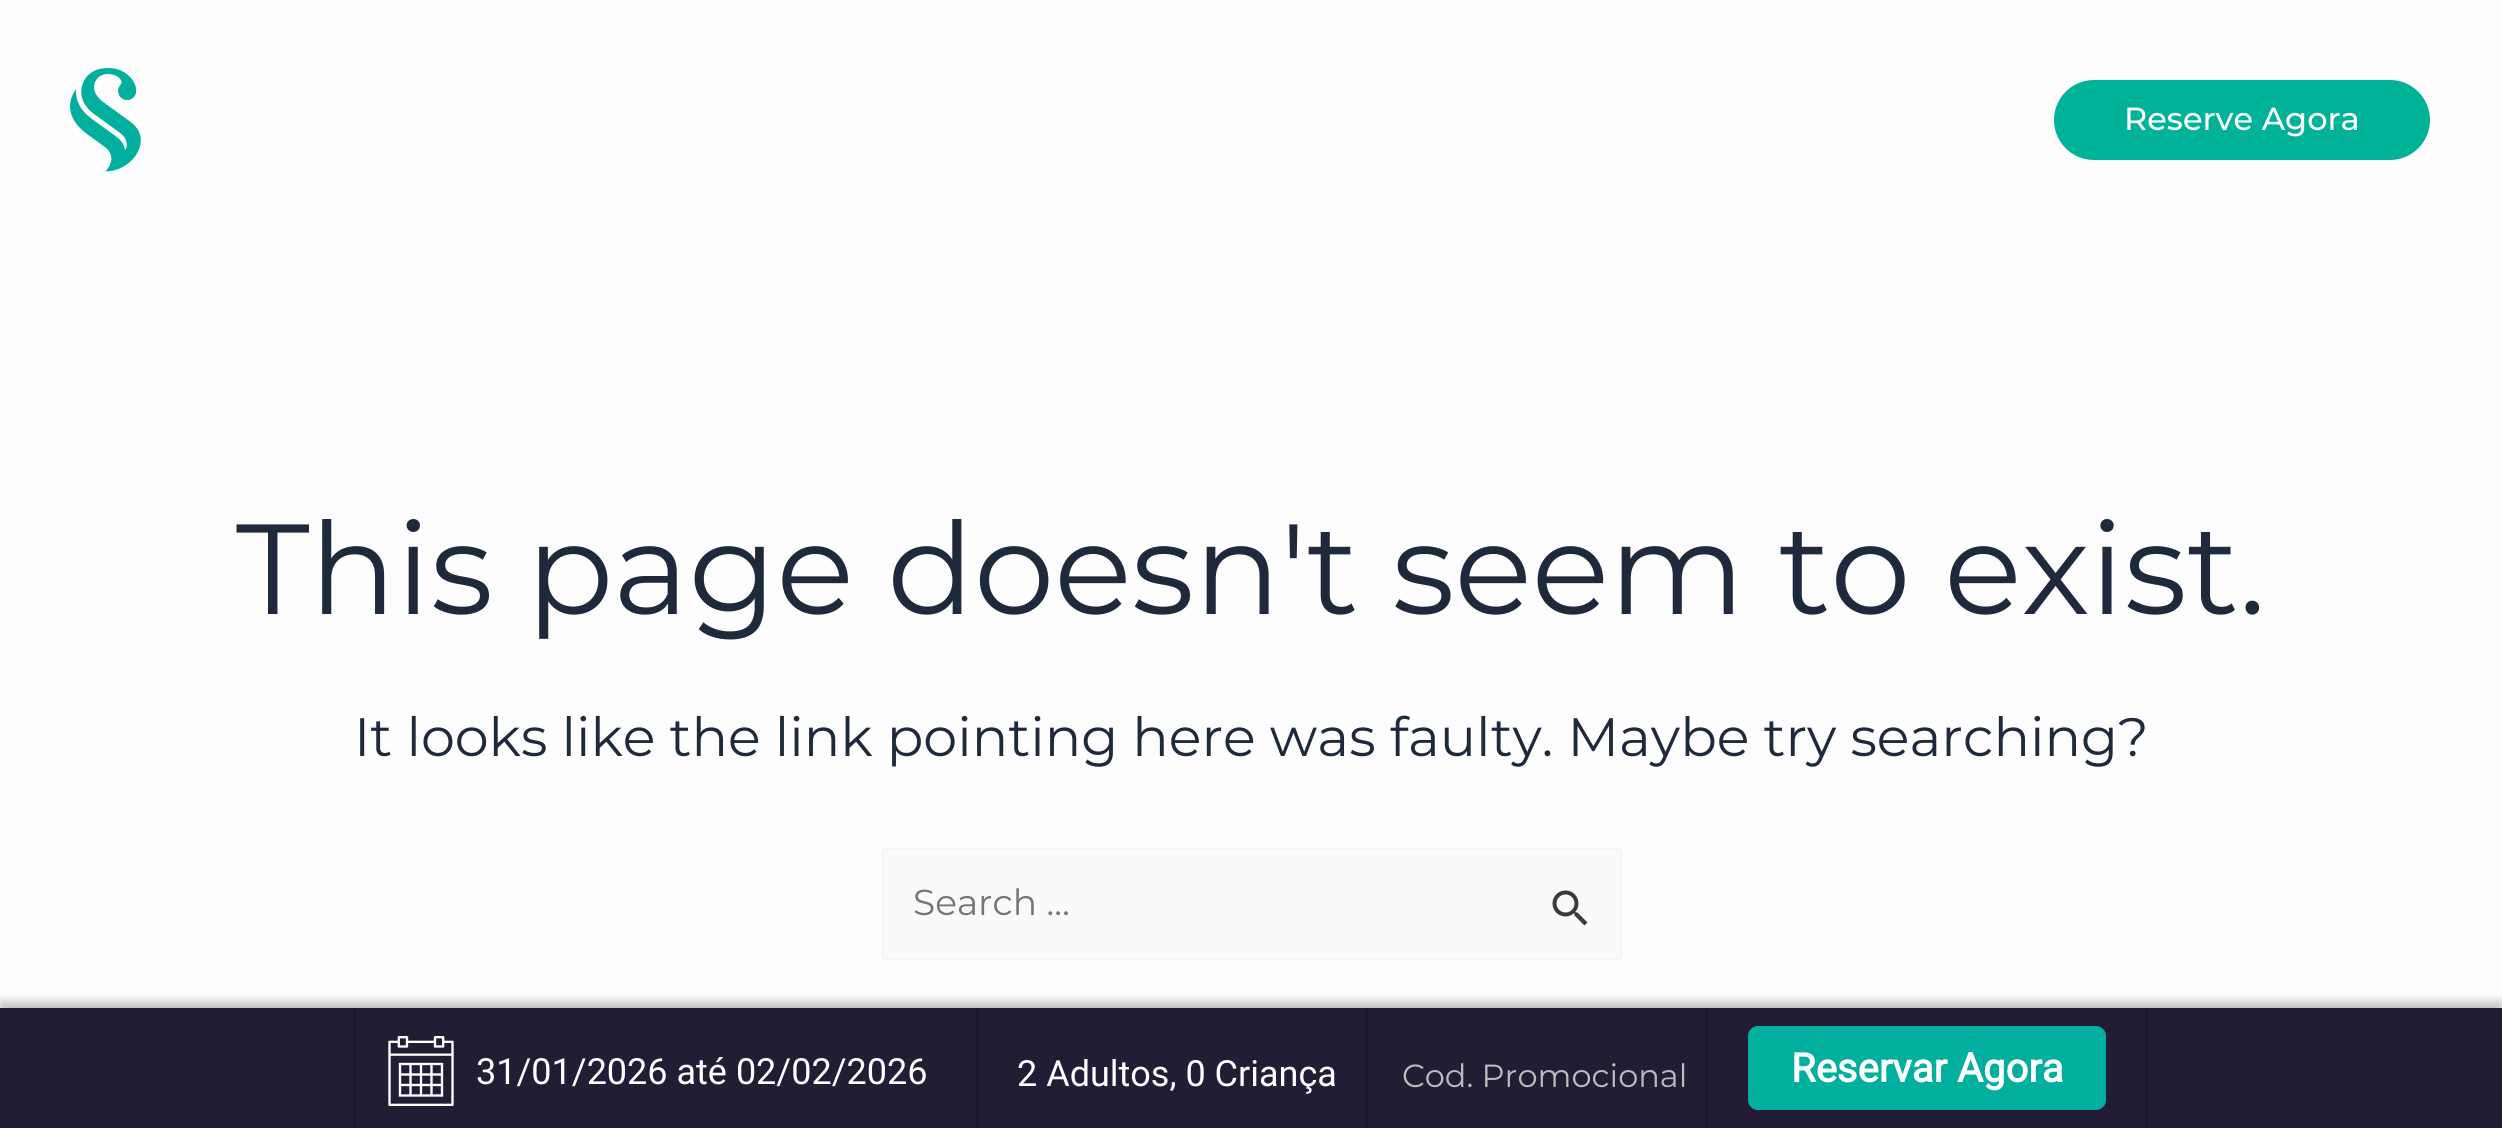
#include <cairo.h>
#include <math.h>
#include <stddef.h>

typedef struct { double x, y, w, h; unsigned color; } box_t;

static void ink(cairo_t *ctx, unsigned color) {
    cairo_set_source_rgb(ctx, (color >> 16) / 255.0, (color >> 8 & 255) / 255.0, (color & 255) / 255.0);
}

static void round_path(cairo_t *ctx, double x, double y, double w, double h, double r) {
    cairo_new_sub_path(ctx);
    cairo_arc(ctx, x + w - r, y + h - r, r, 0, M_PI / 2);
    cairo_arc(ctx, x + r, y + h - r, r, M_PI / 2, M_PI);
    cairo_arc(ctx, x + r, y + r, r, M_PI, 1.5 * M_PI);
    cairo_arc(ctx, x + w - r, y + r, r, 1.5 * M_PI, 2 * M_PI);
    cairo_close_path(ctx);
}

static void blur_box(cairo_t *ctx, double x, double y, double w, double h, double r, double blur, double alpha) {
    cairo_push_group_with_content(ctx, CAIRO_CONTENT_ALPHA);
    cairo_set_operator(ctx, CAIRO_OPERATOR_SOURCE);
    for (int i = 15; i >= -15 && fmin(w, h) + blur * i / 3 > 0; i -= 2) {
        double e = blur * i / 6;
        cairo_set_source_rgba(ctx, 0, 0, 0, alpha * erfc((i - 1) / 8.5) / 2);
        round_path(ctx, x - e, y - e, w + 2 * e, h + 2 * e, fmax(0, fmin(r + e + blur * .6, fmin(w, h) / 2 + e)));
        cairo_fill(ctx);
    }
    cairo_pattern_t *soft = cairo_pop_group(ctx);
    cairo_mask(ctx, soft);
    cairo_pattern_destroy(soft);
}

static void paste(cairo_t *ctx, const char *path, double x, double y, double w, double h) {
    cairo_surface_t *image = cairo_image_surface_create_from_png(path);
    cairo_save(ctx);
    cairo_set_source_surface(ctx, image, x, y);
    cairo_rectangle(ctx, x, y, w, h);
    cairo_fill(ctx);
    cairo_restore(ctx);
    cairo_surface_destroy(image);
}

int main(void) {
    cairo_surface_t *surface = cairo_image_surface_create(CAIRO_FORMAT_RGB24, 2502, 1128);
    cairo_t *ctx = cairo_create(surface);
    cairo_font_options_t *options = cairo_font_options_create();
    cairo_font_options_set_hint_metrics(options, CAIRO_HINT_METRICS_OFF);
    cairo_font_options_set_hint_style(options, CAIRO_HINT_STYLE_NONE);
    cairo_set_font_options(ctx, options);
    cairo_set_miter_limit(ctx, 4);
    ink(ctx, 0xFDFDFD);
    cairo_paint(ctx);
    paste(ctx, "media/1.png", 70, 68, 71, 104);
    ink(ctx, 0x00B398);
    round_path(ctx, 2053, 79, 378, 82, 41);
    cairo_fill_preserve(ctx);
    ink(ctx, 0xFDFDFD);
    cairo_stroke(ctx);
    cairo_select_font_face(ctx, "Montserrat Medium", CAIRO_FONT_SLANT_NORMAL, CAIRO_FONT_WEIGHT_NORMAL);
    cairo_set_font_size(ctx, 32);
    ink(ctx, 0xFFFFFF);
    cairo_move_to(ctx, 2124, 130);
    cairo_show_text(ctx, "Reserve Agora");
    cairo_select_font_face(ctx, "Montserrat", CAIRO_FONT_SLANT_NORMAL, CAIRO_FONT_WEIGHT_NORMAL);
    cairo_set_font_size(ctx, 128);
    ink(ctx, 0x1E293B);
    cairo_move_to(ctx, 236, 614);
    cairo_show_text(ctx, "This page doesn't seem to exist.");
    cairo_set_font_size(ctx, 54);
    cairo_move_to(ctx, 354, 756);
    cairo_show_text(ctx, "It looks like the link pointing here was faulty. Maybe try searching?");
    ink(ctx, 0xFAFAFA);
    round_path(ctx, 883, 849, 738, 110, 3);
    cairo_fill_preserve(ctx);
    ink(ctx, 0xF2F5F7);
    cairo_stroke(ctx);
    cairo_set_font_size(ctx, 36);
    ink(ctx, 0x757575);
    cairo_move_to(ctx, 913, 915);
    cairo_show_text(ctx, "Search …");
    paste(ctx, "media/2.png", 1552, 890, 36, 36);
    ink(ctx, 0x000000);
    blur_box(ctx, 0, 1002, 2502, 120, 0, 5, 0.25);
    {
        static const box_t items[] = {
            {0, 1008, 2502, 120, 0x221C35},
            {976, 1008, 2, 120, 0x1B162A},
            {354, 1008, 2, 120, 0x1B162A},
        };
        for (size_t i = 0; i < sizeof items / sizeof *items; i++) {
            ink(ctx, items[i].color);
            cairo_rectangle(ctx, items[i].x, items[i].y, items[i].w, items[i].h);
            cairo_fill(ctx);
        }
    }
    paste(ctx, "media/3.png", 388, 1036, 66, 70);
    cairo_select_font_face(ctx, "Roboto", CAIRO_FONT_SLANT_NORMAL, CAIRO_FONT_WEIGHT_NORMAL);
    ink(ctx, 0xFFFFFF);
    cairo_move_to(ctx, 476, 1084);
    cairo_show_text(ctx, "31/01/2026 até 02/02/2026");
    ink(ctx, 0x1B162A);
    cairo_rectangle(ctx, 1366, 1008, 2, 120);
    cairo_fill(ctx);
    ink(ctx, 0xFFFFFF);
    cairo_move_to(ctx, 1017, 1086);
    cairo_show_text(ctx, "2 Adultos, 0 Criança");
    cairo_select_font_face(ctx, "Montserrat", CAIRO_FONT_SLANT_NORMAL, CAIRO_FONT_WEIGHT_NORMAL);
    cairo_set_font_size(ctx, 32);
    ink(ctx, 0xBBBBBB);
    cairo_move_to(ctx, 1402, 1087);
    cairo_show_text(ctx, "Cod. Promocional");
    ink(ctx, 0x1B162A);
    cairo_rectangle(ctx, 2146, 1008, 2, 120);
    cairo_fill(ctx);
    cairo_rectangle(ctx, 1706, 1008, 2, 120);
    cairo_fill(ctx);
    ink(ctx, 0x00AF9E);
    round_path(ctx, 1748, 1026, 358, 84, 10);
    cairo_fill(ctx);
    cairo_select_font_face(ctx, "Roboto", CAIRO_FONT_SLANT_NORMAL, CAIRO_FONT_WEIGHT_BOLD);
    cairo_set_font_size(ctx, 40);
    ink(ctx, 0xFFFFFF);
    cairo_move_to(ctx, 1791, 1082);
    cairo_show_text(ctx, "Reservar Agora");
    cairo_surface_write_to_png(surface, "image.png");
    cairo_font_options_destroy(options);
    cairo_destroy(ctx);
    cairo_surface_destroy(surface);
    return 0;
}
